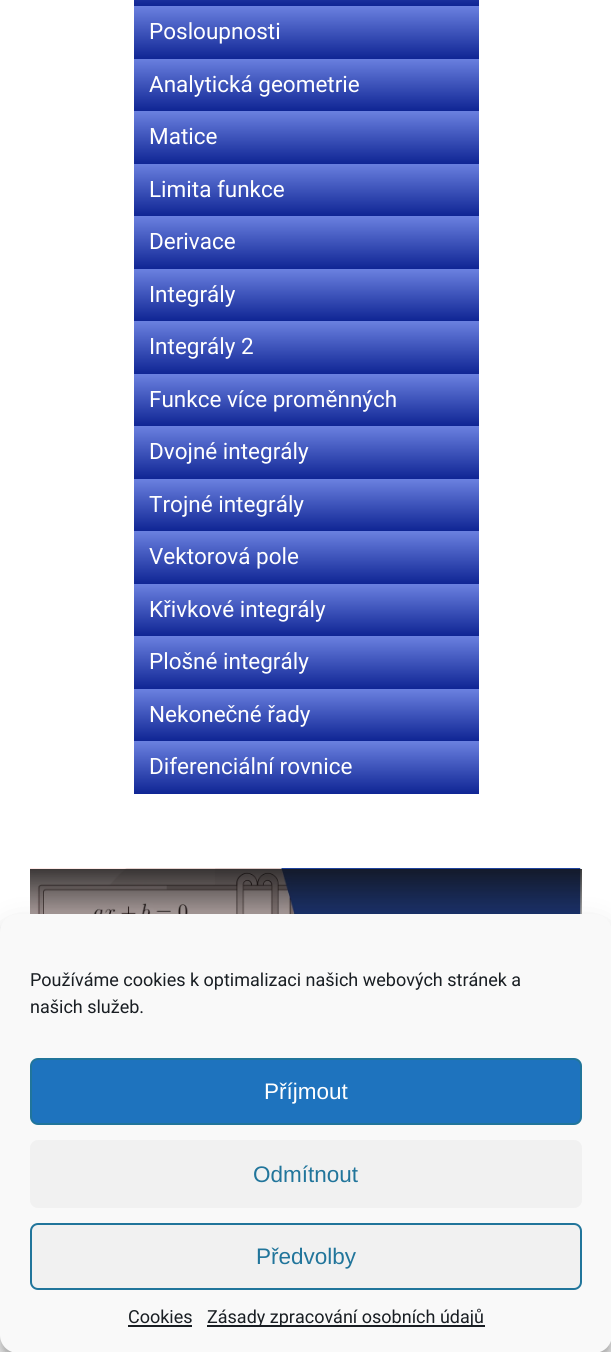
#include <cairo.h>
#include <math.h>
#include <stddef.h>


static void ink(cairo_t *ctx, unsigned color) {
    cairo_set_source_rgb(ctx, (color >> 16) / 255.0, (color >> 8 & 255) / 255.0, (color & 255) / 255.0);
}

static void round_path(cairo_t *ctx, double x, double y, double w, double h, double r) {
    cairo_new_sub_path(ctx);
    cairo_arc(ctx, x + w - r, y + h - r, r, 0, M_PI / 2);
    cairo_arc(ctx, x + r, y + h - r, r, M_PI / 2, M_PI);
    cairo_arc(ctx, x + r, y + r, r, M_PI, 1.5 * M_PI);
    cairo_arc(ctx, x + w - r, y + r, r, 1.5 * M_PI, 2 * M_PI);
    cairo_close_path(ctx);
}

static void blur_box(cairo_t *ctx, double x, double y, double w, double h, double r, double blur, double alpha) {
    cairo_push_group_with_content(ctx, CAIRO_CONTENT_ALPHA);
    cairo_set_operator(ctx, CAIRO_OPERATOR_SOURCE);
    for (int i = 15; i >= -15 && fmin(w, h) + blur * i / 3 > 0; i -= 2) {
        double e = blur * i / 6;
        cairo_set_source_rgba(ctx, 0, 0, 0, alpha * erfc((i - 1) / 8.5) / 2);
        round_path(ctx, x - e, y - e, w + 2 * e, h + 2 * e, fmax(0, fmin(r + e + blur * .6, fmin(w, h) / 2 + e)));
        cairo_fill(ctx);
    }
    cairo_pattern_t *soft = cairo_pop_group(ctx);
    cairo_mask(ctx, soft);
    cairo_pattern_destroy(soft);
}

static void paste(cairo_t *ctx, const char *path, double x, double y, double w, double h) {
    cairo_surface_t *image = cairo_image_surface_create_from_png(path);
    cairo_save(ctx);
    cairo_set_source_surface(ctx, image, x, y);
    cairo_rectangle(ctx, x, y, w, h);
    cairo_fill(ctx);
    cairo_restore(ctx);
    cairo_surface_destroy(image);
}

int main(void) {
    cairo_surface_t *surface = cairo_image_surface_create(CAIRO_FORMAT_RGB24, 611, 1352);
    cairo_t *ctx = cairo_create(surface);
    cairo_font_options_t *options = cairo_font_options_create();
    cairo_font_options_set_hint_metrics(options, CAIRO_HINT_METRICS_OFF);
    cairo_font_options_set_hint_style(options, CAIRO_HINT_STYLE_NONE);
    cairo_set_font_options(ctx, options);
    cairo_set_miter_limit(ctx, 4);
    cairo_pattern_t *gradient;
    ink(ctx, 0xFFFFFF);
    cairo_paint(ctx);
    gradient = cairo_pattern_create_linear(306, -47, 306, 6);
    cairo_pattern_add_color_stop_rgba(gradient, 0, 0.42, 0.506, 0.878, 1);
    cairo_pattern_add_color_stop_rgba(gradient, 1, 0.059, 0.145, 0.58, 1);
    cairo_set_source(ctx, gradient);
    cairo_pattern_destroy(gradient);
    cairo_rectangle(ctx, 134, 0, 345, 6);
    cairo_fill(ctx);
    gradient = cairo_pattern_create_linear(306, 6, 306, 59);
    cairo_pattern_add_color_stop_rgba(gradient, 0, 0.42, 0.506, 0.878, 1);
    cairo_pattern_add_color_stop_rgba(gradient, 1, 0.059, 0.145, 0.58, 1);
    cairo_set_source(ctx, gradient);
    cairo_pattern_destroy(gradient);
    cairo_rectangle(ctx, 134, 6, 345, 53);
    cairo_fill(ctx);
    cairo_select_font_face(ctx, "Roboto", CAIRO_FONT_SLANT_NORMAL, CAIRO_FONT_WEIGHT_NORMAL);
    cairo_set_font_size(ctx, 22.5);
    ink(ctx, 0xFFFFFF);
    cairo_move_to(ctx, 149, 39);
    cairo_show_text(ctx, "Posloupnosti");
    gradient = cairo_pattern_create_linear(306, 58, 306, 111);
    cairo_pattern_add_color_stop_rgba(gradient, 0, 0.42, 0.506, 0.878, 1);
    cairo_pattern_add_color_stop_rgba(gradient, 1, 0.059, 0.145, 0.58, 1);
    cairo_set_source(ctx, gradient);
    cairo_pattern_destroy(gradient);
    cairo_rectangle(ctx, 134, 59, 345, 52);
    cairo_fill(ctx);
    ink(ctx, 0xFFFFFF);
    cairo_move_to(ctx, 149, 92);
    cairo_show_text(ctx, "Analytická geometrie");
    gradient = cairo_pattern_create_linear(306, 111, 306, 164);
    cairo_pattern_add_color_stop_rgba(gradient, 0, 0.42, 0.506, 0.878, 1);
    cairo_pattern_add_color_stop_rgba(gradient, 1, 0.059, 0.145, 0.58, 1);
    cairo_set_source(ctx, gradient);
    cairo_pattern_destroy(gradient);
    cairo_rectangle(ctx, 134, 111, 345, 53);
    cairo_fill(ctx);
    ink(ctx, 0xFFFFFF);
    cairo_move_to(ctx, 149, 144);
    cairo_show_text(ctx, "Matice");
    gradient = cairo_pattern_create_linear(306, 163, 306, 216);
    cairo_pattern_add_color_stop_rgba(gradient, 0, 0.42, 0.506, 0.878, 1);
    cairo_pattern_add_color_stop_rgba(gradient, 1, 0.059, 0.145, 0.58, 1);
    cairo_set_source(ctx, gradient);
    cairo_pattern_destroy(gradient);
    cairo_rectangle(ctx, 134, 164, 345, 52);
    cairo_fill(ctx);
    ink(ctx, 0xFFFFFF);
    cairo_move_to(ctx, 149, 197);
    cairo_show_text(ctx, "Limita funkce");
    gradient = cairo_pattern_create_linear(306, 216, 306, 269);
    cairo_pattern_add_color_stop_rgba(gradient, 0, 0.42, 0.506, 0.878, 1);
    cairo_pattern_add_color_stop_rgba(gradient, 1, 0.059, 0.145, 0.58, 1);
    cairo_set_source(ctx, gradient);
    cairo_pattern_destroy(gradient);
    cairo_rectangle(ctx, 134, 216, 345, 53);
    cairo_fill(ctx);
    ink(ctx, 0xFFFFFF);
    cairo_move_to(ctx, 149, 249);
    cairo_show_text(ctx, "Derivace");
    gradient = cairo_pattern_create_linear(306, 269, 306, 321);
    cairo_pattern_add_color_stop_rgba(gradient, 0, 0.42, 0.506, 0.878, 1);
    cairo_pattern_add_color_stop_rgba(gradient, 1, 0.059, 0.145, 0.58, 1);
    cairo_set_source(ctx, gradient);
    cairo_pattern_destroy(gradient);
    cairo_rectangle(ctx, 134, 269, 345, 52);
    cairo_fill(ctx);
    ink(ctx, 0xFFFFFF);
    cairo_move_to(ctx, 149, 302);
    cairo_show_text(ctx, "Integrály");
    gradient = cairo_pattern_create_linear(306, 321, 306, 374);
    cairo_pattern_add_color_stop_rgba(gradient, 0, 0.42, 0.506, 0.878, 1);
    cairo_pattern_add_color_stop_rgba(gradient, 1, 0.059, 0.145, 0.58, 1);
    cairo_set_source(ctx, gradient);
    cairo_pattern_destroy(gradient);
    cairo_rectangle(ctx, 134, 321, 345, 53);
    cairo_fill(ctx);
    ink(ctx, 0xFFFFFF);
    cairo_move_to(ctx, 149, 354);
    cairo_show_text(ctx, "Integrály 2");
    gradient = cairo_pattern_create_linear(306, 374, 306, 426);
    cairo_pattern_add_color_stop_rgba(gradient, 0, 0.42, 0.506, 0.878, 1);
    cairo_pattern_add_color_stop_rgba(gradient, 1, 0.059, 0.145, 0.58, 1);
    cairo_set_source(ctx, gradient);
    cairo_pattern_destroy(gradient);
    cairo_rectangle(ctx, 134, 374, 345, 52);
    cairo_fill(ctx);
    ink(ctx, 0xFFFFFF);
    cairo_move_to(ctx, 149, 407);
    cairo_show_text(ctx, "Funkce více proměnných");
    gradient = cairo_pattern_create_linear(306, 426, 306, 479);
    cairo_pattern_add_color_stop_rgba(gradient, 0, 0.42, 0.506, 0.878, 1);
    cairo_pattern_add_color_stop_rgba(gradient, 1, 0.059, 0.145, 0.58, 1);
    cairo_set_source(ctx, gradient);
    cairo_pattern_destroy(gradient);
    cairo_rectangle(ctx, 134, 426, 345, 53);
    cairo_fill(ctx);
    ink(ctx, 0xFFFFFF);
    cairo_move_to(ctx, 149, 459);
    cairo_show_text(ctx, "Dvojné integrály");
    gradient = cairo_pattern_create_linear(306, 479, 306, 531);
    cairo_pattern_add_color_stop_rgba(gradient, 0, 0.42, 0.506, 0.878, 1);
    cairo_pattern_add_color_stop_rgba(gradient, 1, 0.059, 0.145, 0.58, 1);
    cairo_set_source(ctx, gradient);
    cairo_pattern_destroy(gradient);
    cairo_rectangle(ctx, 134, 479, 345, 52);
    cairo_fill(ctx);
    ink(ctx, 0xFFFFFF);
    cairo_move_to(ctx, 149, 512);
    cairo_show_text(ctx, "Trojné integrály");
    gradient = cairo_pattern_create_linear(306, 531, 306, 584);
    cairo_pattern_add_color_stop_rgba(gradient, 0, 0.42, 0.506, 0.878, 1);
    cairo_pattern_add_color_stop_rgba(gradient, 1, 0.059, 0.145, 0.58, 1);
    cairo_set_source(ctx, gradient);
    cairo_pattern_destroy(gradient);
    cairo_rectangle(ctx, 134, 531, 345, 53);
    cairo_fill(ctx);
    ink(ctx, 0xFFFFFF);
    cairo_move_to(ctx, 149, 564);
    cairo_show_text(ctx, "Vektorová pole");
    gradient = cairo_pattern_create_linear(306, 584, 306, 636);
    cairo_pattern_add_color_stop_rgba(gradient, 0, 0.42, 0.506, 0.878, 1);
    cairo_pattern_add_color_stop_rgba(gradient, 1, 0.059, 0.145, 0.58, 1);
    cairo_set_source(ctx, gradient);
    cairo_pattern_destroy(gradient);
    cairo_rectangle(ctx, 134, 584, 345, 52);
    cairo_fill(ctx);
    ink(ctx, 0xFFFFFF);
    cairo_move_to(ctx, 149, 617);
    cairo_show_text(ctx, "Křivkové integrály");
    gradient = cairo_pattern_create_linear(306, 636, 306, 689);
    cairo_pattern_add_color_stop_rgba(gradient, 0, 0.42, 0.506, 0.878, 1);
    cairo_pattern_add_color_stop_rgba(gradient, 1, 0.059, 0.145, 0.58, 1);
    cairo_set_source(ctx, gradient);
    cairo_pattern_destroy(gradient);
    cairo_rectangle(ctx, 134, 636, 345, 53);
    cairo_fill(ctx);
    ink(ctx, 0xFFFFFF);
    cairo_move_to(ctx, 149, 669);
    cairo_show_text(ctx, "Plošné integrály");
    gradient = cairo_pattern_create_linear(306, 689, 306, 741);
    cairo_pattern_add_color_stop_rgba(gradient, 0, 0.42, 0.506, 0.878, 1);
    cairo_pattern_add_color_stop_rgba(gradient, 1, 0.059, 0.145, 0.58, 1);
    cairo_set_source(ctx, gradient);
    cairo_pattern_destroy(gradient);
    cairo_rectangle(ctx, 134, 689, 345, 52);
    cairo_fill(ctx);
    ink(ctx, 0xFFFFFF);
    cairo_move_to(ctx, 149, 722);
    cairo_show_text(ctx, "Nekonečné řady");
    gradient = cairo_pattern_create_linear(306, 741, 306, 794);
    cairo_pattern_add_color_stop_rgba(gradient, 0, 0.42, 0.506, 0.878, 1);
    cairo_pattern_add_color_stop_rgba(gradient, 1, 0.059, 0.145, 0.58, 1);
    cairo_set_source(ctx, gradient);
    cairo_pattern_destroy(gradient);
    cairo_rectangle(ctx, 134, 741, 345, 53);
    cairo_fill(ctx);
    ink(ctx, 0xFFFFFF);
    cairo_move_to(ctx, 149, 774);
    cairo_show_text(ctx, "Diferenciální rovnice");
    paste(ctx, "media/1.png", 30, 868, 551, 46);
    gradient = cairo_pattern_create_linear(306, 851, 306, 959);
    cairo_pattern_add_color_stop_rgba(gradient, 0, 0.067, 0.067, 0.067, 1);
    cairo_pattern_add_color_stop_rgba(gradient, 0.92, 0.067, 0.067, 0.067, 0);
    cairo_set_source(ctx, gradient);
    cairo_pattern_destroy(gradient);
    cairo_rectangle(ctx, 30, 869, 552, 45);
    cairo_fill(ctx);
    ink(ctx, 0x000000);
    blur_box(ctx, 0, 923, 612, 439, 18, 4.5, 0.23);
    blur_box(ctx, 0, 929, 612, 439, 18, 15, 0.19);
    ink(ctx, 0xF9F9F9);
    round_path(ctx, 0, 914, 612, 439, 18);
    cairo_fill(ctx);
    cairo_set_font_size(ctx, 18);
    ink(ctx, 0x191E23);
    cairo_move_to(ctx, 30, 986);
    cairo_show_text(ctx, "Používáme cookies k optimalizaci našich webových stránek a");
    cairo_move_to(ctx, 30, 1013);
    cairo_show_text(ctx, "našich služeb.");
    ink(ctx, 0x1E73BE);
    round_path(ctx, 31, 1059, 550, 65, 7);
    cairo_fill_preserve(ctx);
    ink(ctx, 0x21759B);
    cairo_stroke(ctx);
    cairo_select_font_face(ctx, "Liberation Sans", CAIRO_FONT_SLANT_NORMAL, CAIRO_FONT_WEIGHT_NORMAL);
    cairo_set_font_size(ctx, 22.5);
    ink(ctx, 0xFFFFFF);
    cairo_move_to(ctx, 264, 1099);
    cairo_show_text(ctx, "Příjmout");
    ink(ctx, 0xF1F1F1);
    round_path(ctx, 30, 1140, 552, 68, 8);
    cairo_fill(ctx);
    ink(ctx, 0x21759B);
    cairo_move_to(ctx, 253, 1182);
    cairo_show_text(ctx, "Odmítnout");
    ink(ctx, 0xF1F1F1);
    round_path(ctx, 31, 1224, 550, 65, 7);
    cairo_fill_preserve(ctx);
    ink(ctx, 0x21759B);
    cairo_stroke(ctx);
    cairo_move_to(ctx, 256, 1264);
    cairo_show_text(ctx, "Předvolby");
    cairo_select_font_face(ctx, "Roboto", CAIRO_FONT_SLANT_NORMAL, CAIRO_FONT_WEIGHT_NORMAL);
    cairo_set_font_size(ctx, 18);
    ink(ctx, 0x191E23);
    cairo_move_to(ctx, 128, 1323);
    cairo_show_text(ctx, "Cookies");
    cairo_rectangle(ctx, 128, 1325, 64, 2);
    cairo_fill(ctx);
    cairo_rectangle(ctx, 207, 1325, 278, 2);
    cairo_fill(ctx);
    cairo_move_to(ctx, 207, 1323);
    cairo_show_text(ctx, "Zásady zpracování osobních údajů");
    cairo_surface_write_to_png(surface, "image.png");
    cairo_font_options_destroy(options);
    cairo_destroy(ctx);
    cairo_surface_destroy(surface);
    return 0;
}
